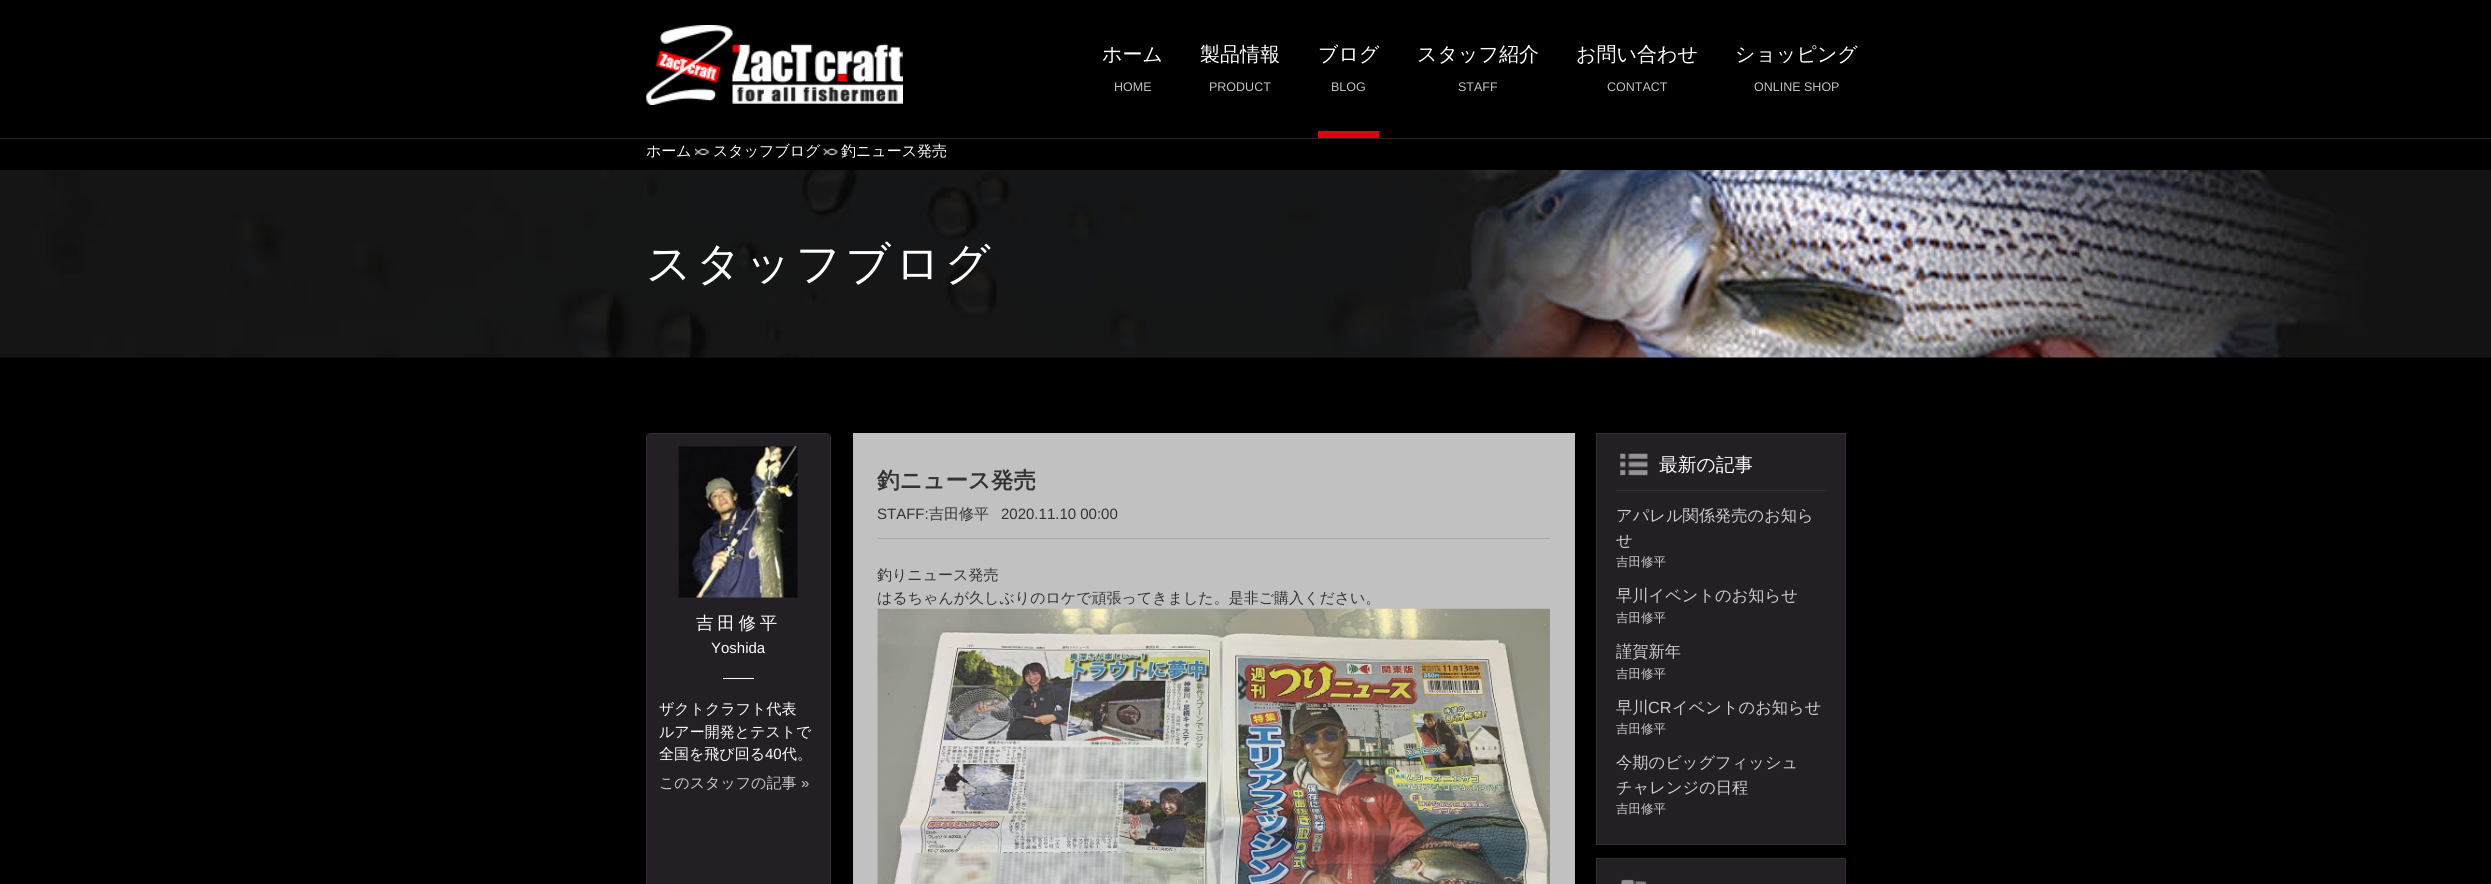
#include <cairo.h>
#include <math.h>
#include <stddef.h>

typedef struct { double x, y; const char *s; } line_t;

static void ink(cairo_t *ctx, unsigned color) {
    cairo_set_source_rgb(ctx, (color >> 16) / 255.0, (color >> 8 & 255) / 255.0, (color & 255) / 255.0);
}

static void write_spaced(cairo_t *ctx, double x, double y, const char *s, double letter, double word) {
    cairo_move_to(ctx, x, y);
    while (*s) {
        char ch[5] = {0};
        int n = 0;
        do ch[n++] = *s++; while ((*s & 0xC0) == 0x80);
        cairo_show_text(ctx, ch);
        cairo_rel_move_to(ctx, letter + word * (*ch == ' '), 0);
    }
}

static void round_path(cairo_t *ctx, double x, double y, double w, double h, double r) {
    cairo_new_sub_path(ctx);
    cairo_arc(ctx, x + w - r, y + h - r, r, 0, M_PI / 2);
    cairo_arc(ctx, x + r, y + h - r, r, M_PI / 2, M_PI);
    cairo_arc(ctx, x + r, y + r, r, M_PI, 1.5 * M_PI);
    cairo_arc(ctx, x + w - r, y + r, r, 1.5 * M_PI, 2 * M_PI);
    cairo_close_path(ctx);
}

static void paste(cairo_t *ctx, const char *path, double x, double y, double w, double h) {
    cairo_surface_t *image = cairo_image_surface_create_from_png(path);
    cairo_save(ctx);
    cairo_set_source_surface(ctx, image, x, y);
    cairo_rectangle(ctx, x, y, w, h);
    cairo_fill(ctx);
    cairo_restore(ctx);
    cairo_surface_destroy(image);
}

int main(void) {
    cairo_surface_t *surface = cairo_image_surface_create(CAIRO_FORMAT_RGB24, 2491, 884);
    cairo_t *ctx = cairo_create(surface);
    cairo_font_options_t *options = cairo_font_options_create();
    cairo_font_options_set_hint_metrics(options, CAIRO_HINT_METRICS_OFF);
    cairo_font_options_set_hint_style(options, CAIRO_HINT_STYLE_NONE);
    cairo_set_font_options(ctx, options);
    cairo_set_miter_limit(ctx, 4);
    ink(ctx, 0x000000);
    cairo_paint(ctx);
    paste(ctx, "media/1.png", 646, 25, 257, 80);
    cairo_select_font_face(ctx, "WenQuanYi Zen Hei Medium", CAIRO_FONT_SLANT_NORMAL, CAIRO_FONT_WEIGHT_NORMAL);
    cairo_set_font_size(ctx, 20);
    ink(ctx, 0xFFFFFF);
    cairo_move_to(ctx, 1102, 61);
    cairo_show_text(ctx, "ホーム");
    cairo_select_font_face(ctx, "Liberation Sans", CAIRO_FONT_SLANT_NORMAL, CAIRO_FONT_WEIGHT_NORMAL);
    cairo_set_font_size(ctx, 12.5);
    ink(ctx, 0xC2C2C2);
    cairo_move_to(ctx, 1114, 91);
    cairo_show_text(ctx, "HOME");
    cairo_select_font_face(ctx, "WenQuanYi Zen Hei Medium", CAIRO_FONT_SLANT_NORMAL, CAIRO_FONT_WEIGHT_NORMAL);
    cairo_set_font_size(ctx, 20);
    ink(ctx, 0xFFFFFF);
    cairo_move_to(ctx, 1200, 61);
    cairo_show_text(ctx, "製品情報");
    cairo_select_font_face(ctx, "Liberation Sans", CAIRO_FONT_SLANT_NORMAL, CAIRO_FONT_WEIGHT_NORMAL);
    cairo_set_font_size(ctx, 12.5);
    ink(ctx, 0xC2C2C2);
    cairo_move_to(ctx, 1209, 91);
    cairo_show_text(ctx, "PRODUCT");
    cairo_select_font_face(ctx, "WenQuanYi Zen Hei Medium", CAIRO_FONT_SLANT_NORMAL, CAIRO_FONT_WEIGHT_NORMAL);
    cairo_set_font_size(ctx, 20);
    ink(ctx, 0xFFFFFF);
    cairo_move_to(ctx, 1318, 61);
    cairo_show_text(ctx, "ブログ");
    cairo_select_font_face(ctx, "Liberation Sans", CAIRO_FONT_SLANT_NORMAL, CAIRO_FONT_WEIGHT_NORMAL);
    cairo_set_font_size(ctx, 12.5);
    ink(ctx, 0xC2C2C2);
    cairo_move_to(ctx, 1331, 91);
    cairo_show_text(ctx, "BLOG");
    ink(ctx, 0xDD0011);
    cairo_rectangle(ctx, 1318, 131, 61, 7);
    cairo_fill(ctx);
    cairo_select_font_face(ctx, "WenQuanYi Zen Hei Medium", CAIRO_FONT_SLANT_NORMAL, CAIRO_FONT_WEIGHT_NORMAL);
    cairo_set_font_size(ctx, 20);
    ink(ctx, 0xFFFFFF);
    cairo_move_to(ctx, 1417, 61);
    cairo_show_text(ctx, "スタッフ紹介");
    cairo_select_font_face(ctx, "Liberation Sans", CAIRO_FONT_SLANT_NORMAL, CAIRO_FONT_WEIGHT_NORMAL);
    cairo_set_font_size(ctx, 12.5);
    ink(ctx, 0xC2C2C2);
    cairo_move_to(ctx, 1458, 91);
    cairo_show_text(ctx, "STAFF");
    cairo_select_font_face(ctx, "WenQuanYi Zen Hei Medium", CAIRO_FONT_SLANT_NORMAL, CAIRO_FONT_WEIGHT_NORMAL);
    cairo_set_font_size(ctx, 20);
    ink(ctx, 0xFFFFFF);
    cairo_move_to(ctx, 1576, 61);
    cairo_show_text(ctx, "お問い合わせ");
    cairo_select_font_face(ctx, "Liberation Sans", CAIRO_FONT_SLANT_NORMAL, CAIRO_FONT_WEIGHT_NORMAL);
    cairo_set_font_size(ctx, 12.5);
    ink(ctx, 0xC2C2C2);
    cairo_move_to(ctx, 1607, 91);
    cairo_show_text(ctx, "CONTACT");
    cairo_select_font_face(ctx, "WenQuanYi Zen Hei Medium", CAIRO_FONT_SLANT_NORMAL, CAIRO_FONT_WEIGHT_NORMAL);
    cairo_set_font_size(ctx, 20);
    ink(ctx, 0xFFFFFF);
    cairo_move_to(ctx, 1735, 61);
    cairo_show_text(ctx, "ショッピング");
    cairo_select_font_face(ctx, "Liberation Sans", CAIRO_FONT_SLANT_NORMAL, CAIRO_FONT_WEIGHT_NORMAL);
    cairo_set_font_size(ctx, 12.5);
    ink(ctx, 0xC2C2C2);
    cairo_move_to(ctx, 1754, 91);
    cairo_show_text(ctx, "ONLINE SHOP");
    ink(ctx, 0x262626);
    cairo_rectangle(ctx, 0, 138, 2491, 1);
    cairo_fill(ctx);
    cairo_select_font_face(ctx, "WenQuanYi Zen Hei Medium", CAIRO_FONT_SLANT_NORMAL, CAIRO_FONT_WEIGHT_NORMAL);
    cairo_set_font_size(ctx, 15);
    ink(ctx, 0xFFFFFF);
    cairo_move_to(ctx, 646, 156);
    cairo_show_text(ctx, "ホーム");
    paste(ctx, "media/2.png", 695, 148, 14, 7);
    cairo_move_to(ctx, 713, 156);
    cairo_show_text(ctx, "スタッフブログ");
    paste(ctx, "media/3.png", 823, 148, 15, 7);
    cairo_move_to(ctx, 841, 156);
    cairo_show_text(ctx, "釣ニュース発売");
    paste(ctx, "media/4.png", 0, 170, 2491, 188);
    cairo_set_font_size(ctx, 45);
    write_spaced(ctx, 646, 279, "スタッフブログ", 3.75, 0);
    ink(ctx, 0x231F24);
    round_path(ctx, 646.5, 433.5, 184, 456, 4.5);
    cairo_fill_preserve(ctx);
    ink(ctx, 0x303030);
    cairo_set_line_width(ctx, 1);
    cairo_stroke(ctx);
    paste(ctx, "media/5.png", 678, 446, 120, 152);
    cairo_set_font_size(ctx, 17.5);
    ink(ctx, 0xFFFFFF);
    write_spaced(ctx, 696, 629, "吉田修平", 3.75, 0);
    cairo_select_font_face(ctx, "Liberation Sans", CAIRO_FONT_SLANT_NORMAL, CAIRO_FONT_WEIGHT_NORMAL);
    cairo_set_font_size(ctx, 15);
    cairo_move_to(ctx, 711, 653);
    cairo_show_text(ctx, "Yoshida");
    cairo_rectangle(ctx, 723, 678, 31, 1);
    cairo_fill(ctx);
    cairo_select_font_face(ctx, "WenQuanYi Zen Hei Medium", CAIRO_FONT_SLANT_NORMAL, CAIRO_FONT_WEIGHT_NORMAL);
    {
        static const line_t items[] = {
            {659, 714, "ザクトクラフト代表"},
            {659, 737, "ルアー開発とテストで"},
            {659, 759, "全国を飛び回る"},
        };
        for (size_t i = 0; i < sizeof items / sizeof *items; i++) {
            cairo_move_to(ctx, items[i].x, items[i].y);
            cairo_show_text(ctx, items[i].s);
        }
    }
    cairo_select_font_face(ctx, "Liberation Sans", CAIRO_FONT_SLANT_NORMAL, CAIRO_FONT_WEIGHT_NORMAL);
    cairo_move_to(ctx, 765, 759);
    cairo_show_text(ctx, "40");
    cairo_select_font_face(ctx, "WenQuanYi Zen Hei Medium", CAIRO_FONT_SLANT_NORMAL, CAIRO_FONT_WEIGHT_NORMAL);
    cairo_move_to(ctx, 782, 759);
    cairo_show_text(ctx, "代。");
    ink(ctx, 0xCDCDCD);
    cairo_move_to(ctx, 659, 788);
    cairo_show_text(ctx, "このスタッフの記事");
    cairo_select_font_face(ctx, "Liberation Sans", CAIRO_FONT_SLANT_NORMAL, CAIRO_FONT_WEIGHT_NORMAL);
    cairo_move_to(ctx, 801, 788);
    cairo_show_text(ctx, "»");
    ink(ctx, 0xC1C1C1);
    cairo_rectangle(ctx, 853, 433, 722, 451);
    cairo_fill(ctx);
    cairo_select_font_face(ctx, "WenQuanYi Zen Hei", CAIRO_FONT_SLANT_NORMAL, CAIRO_FONT_WEIGHT_BOLD);
    cairo_set_font_size(ctx, 22.5);
    ink(ctx, 0x333333);
    cairo_move_to(ctx, 877, 488);
    cairo_show_text(ctx, "釣ニュース発売");
    ink(ctx, 0xA7A7A7);
    cairo_rectangle(ctx, 878, 538, 672, 1);
    cairo_fill(ctx);
    cairo_select_font_face(ctx, "Liberation Sans", CAIRO_FONT_SLANT_NORMAL, CAIRO_FONT_WEIGHT_NORMAL);
    cairo_set_font_size(ctx, 15);
    ink(ctx, 0x333333);
    cairo_move_to(ctx, 877, 519);
    cairo_show_text(ctx, "STAFF:");
    cairo_select_font_face(ctx, "WenQuanYi Zen Hei Medium", CAIRO_FONT_SLANT_NORMAL, CAIRO_FONT_WEIGHT_NORMAL);
    cairo_move_to(ctx, 929, 519);
    cairo_show_text(ctx, "吉田修平");
    cairo_select_font_face(ctx, "Liberation Sans", CAIRO_FONT_SLANT_NORMAL, CAIRO_FONT_WEIGHT_NORMAL);
    cairo_move_to(ctx, 1001, 519);
    cairo_show_text(ctx, "2020.11.10 00:00");
    cairo_select_font_face(ctx, "WenQuanYi Zen Hei Medium", CAIRO_FONT_SLANT_NORMAL, CAIRO_FONT_WEIGHT_NORMAL);
    cairo_move_to(ctx, 877, 580);
    cairo_show_text(ctx, "釣りニュース発売");
    cairo_move_to(ctx, 877, 603);
    cairo_show_text(ctx, "はるちゃんが久しぶりのロケで頑張ってきました。是非ご購入ください。");
    paste(ctx, "media/6.png", 877, 608, 673, 276);
    ink(ctx, 0x231F24);
    cairo_rectangle(ctx, 1596.5, 433.5, 249, 411);
    cairo_fill_preserve(ctx);
    ink(ctx, 0x303030);
    cairo_stroke(ctx);
    paste(ctx, "media/7.png", 1620, 453, 28, 23);
    cairo_rectangle(ctx, 1616, 490, 210, 1);
    cairo_fill(ctx);
    cairo_set_font_size(ctx, 18.75);
    ink(ctx, 0xFFFFFF);
    cairo_move_to(ctx, 1659, 471);
    cairo_show_text(ctx, "最新の記事");
    cairo_set_font_size(ctx, 16.25);
    ink(ctx, 0xCDCDCD);
    cairo_move_to(ctx, 1616, 521);
    cairo_show_text(ctx, "アパレル関係発売のお知ら");
    cairo_move_to(ctx, 1616, 546);
    cairo_show_text(ctx, "せ");
    cairo_set_font_size(ctx, 12.5);
    cairo_move_to(ctx, 1616, 566);
    cairo_show_text(ctx, "吉田修平");
    cairo_set_font_size(ctx, 16.25);
    cairo_move_to(ctx, 1616, 601);
    cairo_show_text(ctx, "早川イベントのお知らせ");
    cairo_set_font_size(ctx, 12.5);
    cairo_move_to(ctx, 1616, 622);
    cairo_show_text(ctx, "吉田修平");
    cairo_set_font_size(ctx, 16.25);
    cairo_move_to(ctx, 1616, 657);
    cairo_show_text(ctx, "謹賀新年");
    cairo_set_font_size(ctx, 12.5);
    cairo_move_to(ctx, 1616, 678);
    cairo_show_text(ctx, "吉田修平");
    cairo_set_font_size(ctx, 16.25);
    cairo_move_to(ctx, 1616, 713);
    cairo_show_text(ctx, "早川");
    cairo_select_font_face(ctx, "Liberation Sans", CAIRO_FONT_SLANT_NORMAL, CAIRO_FONT_WEIGHT_NORMAL);
    cairo_move_to(ctx, 1648, 713);
    cairo_show_text(ctx, "CR");
    cairo_select_font_face(ctx, "WenQuanYi Zen Hei Medium", CAIRO_FONT_SLANT_NORMAL, CAIRO_FONT_WEIGHT_NORMAL);
    cairo_move_to(ctx, 1672, 713);
    cairo_show_text(ctx, "イベントのお知らせ");
    cairo_set_font_size(ctx, 12.5);
    cairo_move_to(ctx, 1616, 733);
    cairo_show_text(ctx, "吉田修平");
    cairo_set_font_size(ctx, 16.25);
    cairo_move_to(ctx, 1616, 768);
    cairo_show_text(ctx, "今期のビッグフィッシュ");
    cairo_move_to(ctx, 1616, 793);
    cairo_show_text(ctx, "チャレンジの日程");
    cairo_set_font_size(ctx, 12.5);
    cairo_move_to(ctx, 1616, 813);
    cairo_show_text(ctx, "吉田修平");
    ink(ctx, 0x231F24);
    cairo_rectangle(ctx, 1596.5, 858.5, 249, 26);
    cairo_fill_preserve(ctx);
    ink(ctx, 0x303030);
    cairo_stroke(ctx);
    paste(ctx, "media/8.png", 1621, 879, 26, 5);
    cairo_surface_write_to_png(surface, "image.png");
    cairo_font_options_destroy(options);
    cairo_destroy(ctx);
    cairo_surface_destroy(surface);
    return 0;
}
